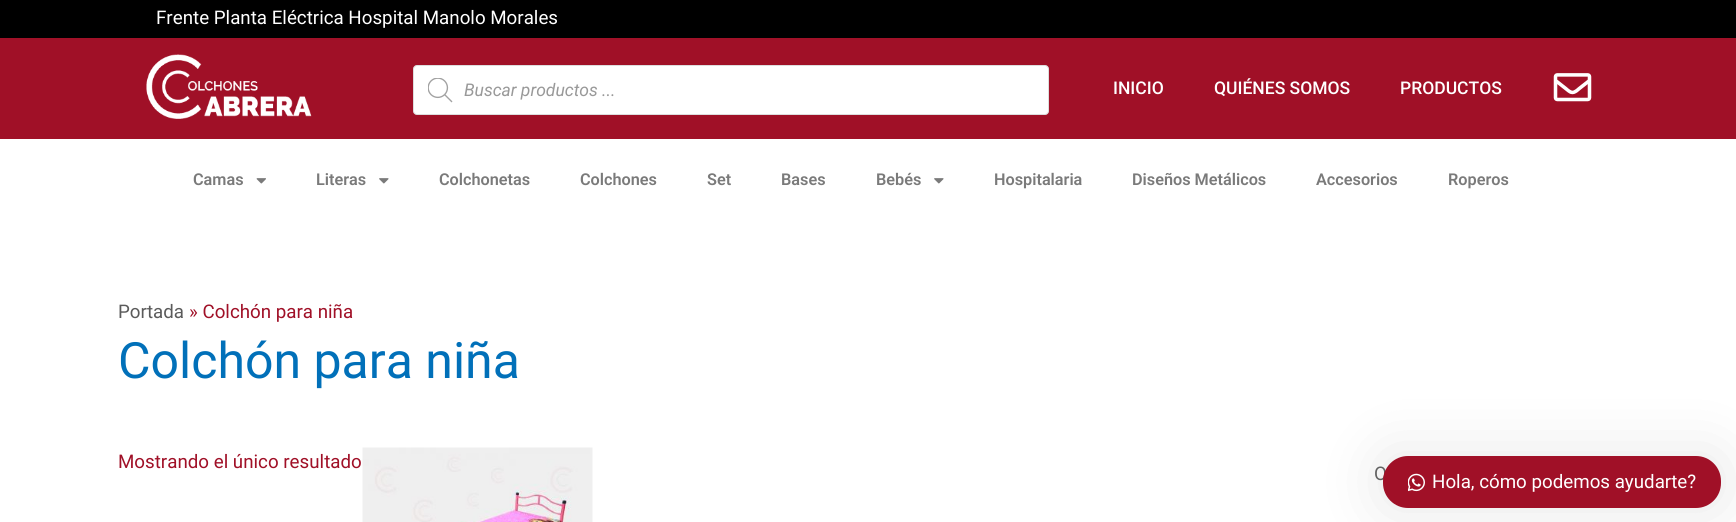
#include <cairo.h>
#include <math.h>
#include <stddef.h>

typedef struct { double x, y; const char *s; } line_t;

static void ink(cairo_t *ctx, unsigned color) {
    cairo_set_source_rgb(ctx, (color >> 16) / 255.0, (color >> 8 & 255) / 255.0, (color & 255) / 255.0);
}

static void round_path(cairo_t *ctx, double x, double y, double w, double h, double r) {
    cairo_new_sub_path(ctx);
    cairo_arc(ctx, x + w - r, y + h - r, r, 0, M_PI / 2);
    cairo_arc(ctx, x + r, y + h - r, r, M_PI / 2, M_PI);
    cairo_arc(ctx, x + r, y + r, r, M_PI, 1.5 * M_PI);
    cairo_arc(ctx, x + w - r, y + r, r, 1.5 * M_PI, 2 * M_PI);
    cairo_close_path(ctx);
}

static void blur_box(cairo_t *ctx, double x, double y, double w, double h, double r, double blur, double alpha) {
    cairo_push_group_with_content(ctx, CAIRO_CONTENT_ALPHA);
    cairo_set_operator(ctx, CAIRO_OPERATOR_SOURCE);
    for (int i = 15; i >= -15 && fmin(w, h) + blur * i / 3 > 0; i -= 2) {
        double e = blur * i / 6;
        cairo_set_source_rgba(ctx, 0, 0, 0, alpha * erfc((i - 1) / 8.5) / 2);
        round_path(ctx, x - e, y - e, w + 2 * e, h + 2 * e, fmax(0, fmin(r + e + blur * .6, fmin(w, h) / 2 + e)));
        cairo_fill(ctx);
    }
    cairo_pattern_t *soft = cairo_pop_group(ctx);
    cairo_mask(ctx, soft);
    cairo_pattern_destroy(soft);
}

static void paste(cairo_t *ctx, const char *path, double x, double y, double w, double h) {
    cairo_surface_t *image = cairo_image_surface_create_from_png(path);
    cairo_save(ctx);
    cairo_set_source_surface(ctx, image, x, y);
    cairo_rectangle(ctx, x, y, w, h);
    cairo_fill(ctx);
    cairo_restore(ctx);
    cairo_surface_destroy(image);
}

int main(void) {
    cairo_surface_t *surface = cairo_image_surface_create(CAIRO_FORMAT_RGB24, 1736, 522);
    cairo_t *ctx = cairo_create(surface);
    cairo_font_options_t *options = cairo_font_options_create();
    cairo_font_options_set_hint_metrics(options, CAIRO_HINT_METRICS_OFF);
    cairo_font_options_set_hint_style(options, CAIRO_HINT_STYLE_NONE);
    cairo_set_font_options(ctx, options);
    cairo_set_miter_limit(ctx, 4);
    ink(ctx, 0xFFFFFF);
    cairo_paint(ctx);
    ink(ctx, 0x000000);
    cairo_rectangle(ctx, 0, 0, 1736, 38);
    cairo_fill(ctx);
    cairo_select_font_face(ctx, "Roboto", CAIRO_FONT_SLANT_NORMAL, CAIRO_FONT_WEIGHT_NORMAL);
    cairo_set_font_size(ctx, 18.75);
    ink(ctx, 0xFFFFFF);
    cairo_move_to(ctx, 156, 24);
    cairo_show_text(ctx, "Frente Planta Eléctrica Hospital Manolo Morales");
    ink(ctx, 0xA01027);
    cairo_rectangle(ctx, 0, 38, 1736, 101);
    cairo_fill(ctx);
    paste(ctx, "media/1.png", 146, 54, 166, 65);
    ink(ctx, 0xFFFFFF);
    round_path(ctx, 413.5, 65.5, 635, 49, 3.5);
    cairo_fill_preserve(ctx);
    ink(ctx, 0xDDDDDD);
    cairo_set_line_width(ctx, 1);
    cairo_stroke(ctx);
    paste(ctx, "media/2.png", 428, 78, 25, 25);
    cairo_select_font_face(ctx, "Roboto", CAIRO_FONT_SLANT_ITALIC, CAIRO_FONT_WEIGHT_NORMAL);
    cairo_set_font_size(ctx, 17.5);
    ink(ctx, 0x999999);
    cairo_move_to(ctx, 464, 96);
    cairo_show_text(ctx, "Buscar productos ...");
    cairo_select_font_face(ctx, "Roboto Medium", CAIRO_FONT_SLANT_NORMAL, CAIRO_FONT_WEIGHT_NORMAL);
    ink(ctx, 0xFFFFFF);
    {
        static const line_t items[] = {
            {1113, 94, "INICIO"},
            {1214, 94, "QUIÉNES SOMOS"},
            {1400, 94, "PRODUCTOS"},
        };
        for (size_t i = 0; i < sizeof items / sizeof *items; i++) {
            cairo_move_to(ctx, items[i].x, items[i].y);
            cairo_show_text(ctx, items[i].s);
        }
    }
    paste(ctx, "media/3.png", 1553, 73, 39, 29);
    cairo_select_font_face(ctx, "Roboto SemiBold", CAIRO_FONT_SLANT_NORMAL, CAIRO_FONT_WEIGHT_NORMAL);
    cairo_set_font_size(ctx, 16.25);
    ink(ctx, 0x7A7A7A);
    cairo_move_to(ctx, 193, 185);
    cairo_show_text(ctx, "Camas");
    paste(ctx, "media/4.png", 256, 178, 10, 6);
    cairo_move_to(ctx, 316, 185);
    cairo_show_text(ctx, "Literas");
    paste(ctx, "media/5.png", 379, 178, 10, 6);
    {
        static const line_t items[] = {
            {439, 185, "Colchonetas"},
            {580, 185, "Colchones"},
            {707, 185, "Set"},
            {781, 185, "Bases"},
            {876, 185, "Bebés"},
        };
        for (size_t i = 0; i < sizeof items / sizeof *items; i++) {
            cairo_move_to(ctx, items[i].x, items[i].y);
            cairo_show_text(ctx, items[i].s);
        }
    }
    paste(ctx, "media/5.png", 934, 178, 10, 6);
    {
        static const line_t items[] = {
            {994, 185, "Hospitalaria"},
            {1132, 185, "Diseños Metálicos"},
            {1316, 185, "Accesorios"},
            {1448, 185, "Roperos"},
        };
        for (size_t i = 0; i < sizeof items / sizeof *items; i++) {
            cairo_move_to(ctx, items[i].x, items[i].y);
            cairo_show_text(ctx, items[i].s);
        }
    }
    cairo_select_font_face(ctx, "Roboto", CAIRO_FONT_SLANT_NORMAL, CAIRO_FONT_WEIGHT_NORMAL);
    cairo_set_font_size(ctx, 18.75);
    ink(ctx, 0x5B5B5B);
    cairo_move_to(ctx, 118, 318);
    cairo_show_text(ctx, "Portada");
    ink(ctx, 0xA01027);
    cairo_move_to(ctx, 189, 318);
    cairo_show_text(ctx, "» Colchón para niña");
    cairo_set_font_size(ctx, 50);
    ink(ctx, 0x0170B9);
    cairo_move_to(ctx, 118, 378);
    cairo_show_text(ctx, "Colchón para niña");
    cairo_set_font_size(ctx, 18.75);
    ink(ctx, 0xA01027);
    cairo_move_to(ctx, 118, 468);
    cairo_show_text(ctx, "Mostrando el único resultado");
    paste(ctx, "media/6.png", 362, 447, 231, 75);
    ink(ctx, 0x666666);
    cairo_move_to(ctx, 1374, 480);
    cairo_show_text(ctx, "O");
    ink(ctx, 0x000000);
    blur_box(ctx, 1383, 456, 338, 52, 25, 31, 0.1);
    ink(ctx, 0xA01027);
    round_path(ctx, 1383, 456, 338, 52, 25);
    cairo_fill(ctx);
    paste(ctx, "media/7.png", 1408, 473, 17, 19);
    ink(ctx, 0xFFFFFF);
    cairo_move_to(ctx, 1432, 488);
    cairo_show_text(ctx, "Hola, cómo podemos ayudarte?");
    cairo_surface_write_to_png(surface, "image.png");
    cairo_font_options_destroy(options);
    cairo_destroy(ctx);
    cairo_surface_destroy(surface);
    return 0;
}
